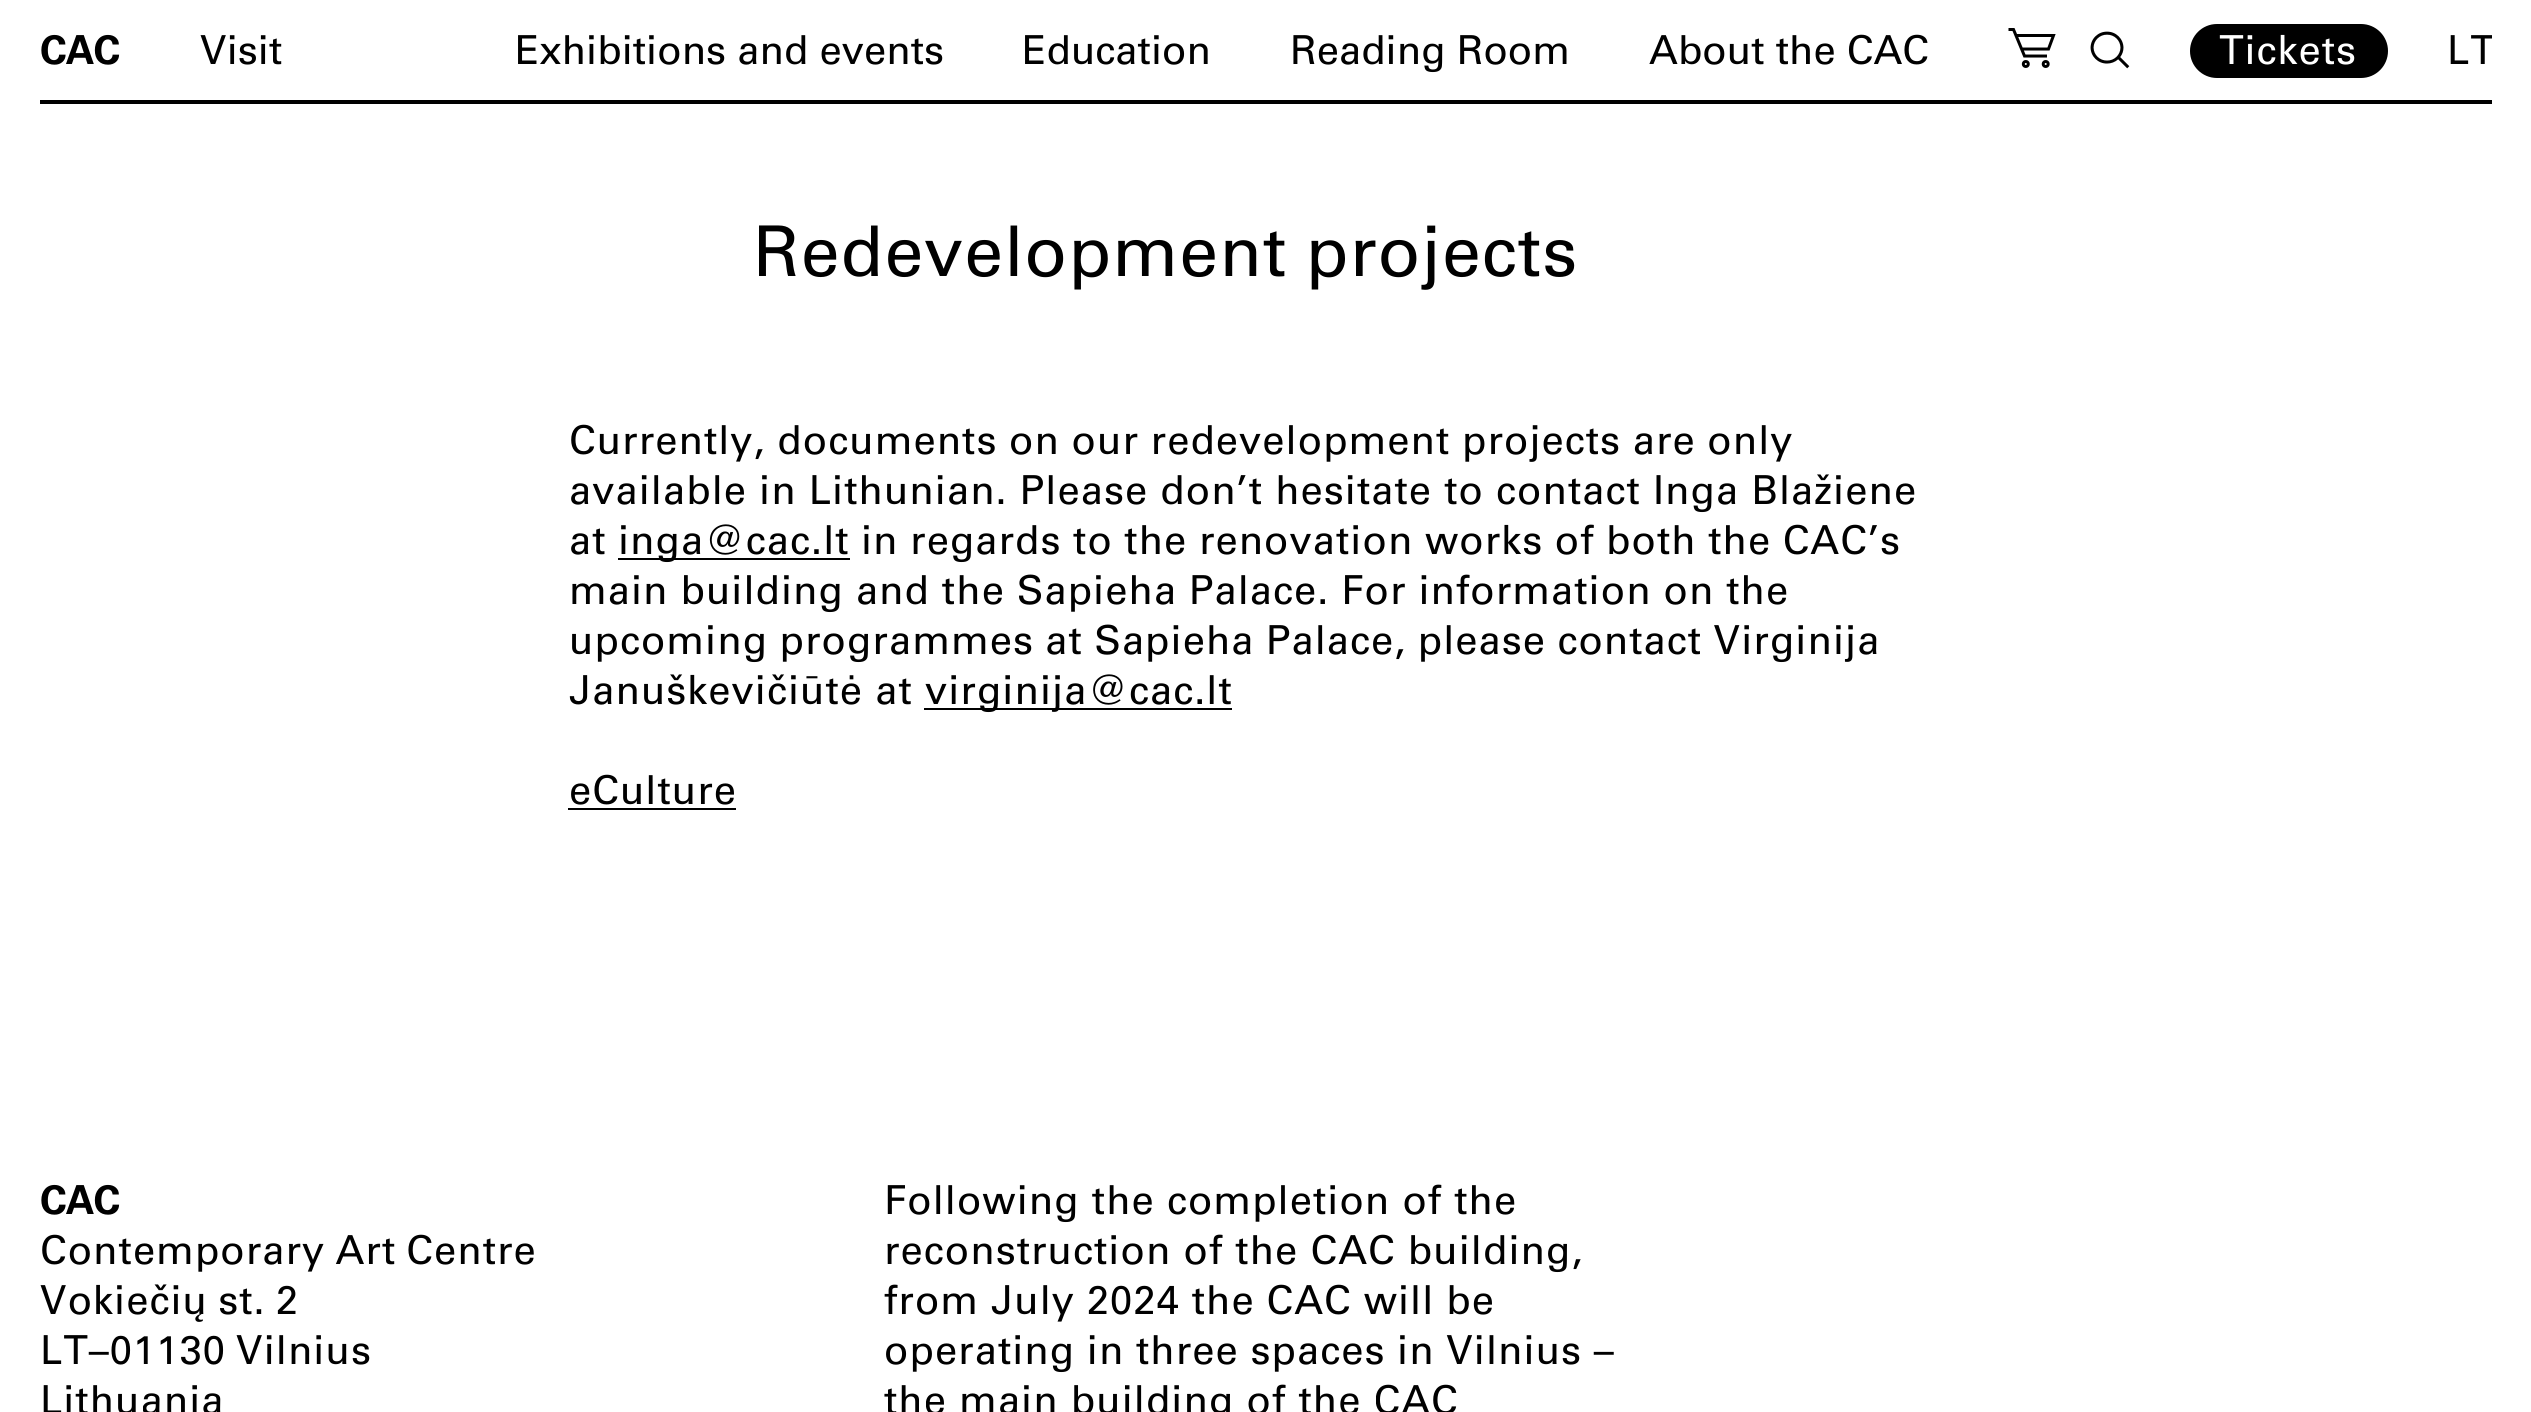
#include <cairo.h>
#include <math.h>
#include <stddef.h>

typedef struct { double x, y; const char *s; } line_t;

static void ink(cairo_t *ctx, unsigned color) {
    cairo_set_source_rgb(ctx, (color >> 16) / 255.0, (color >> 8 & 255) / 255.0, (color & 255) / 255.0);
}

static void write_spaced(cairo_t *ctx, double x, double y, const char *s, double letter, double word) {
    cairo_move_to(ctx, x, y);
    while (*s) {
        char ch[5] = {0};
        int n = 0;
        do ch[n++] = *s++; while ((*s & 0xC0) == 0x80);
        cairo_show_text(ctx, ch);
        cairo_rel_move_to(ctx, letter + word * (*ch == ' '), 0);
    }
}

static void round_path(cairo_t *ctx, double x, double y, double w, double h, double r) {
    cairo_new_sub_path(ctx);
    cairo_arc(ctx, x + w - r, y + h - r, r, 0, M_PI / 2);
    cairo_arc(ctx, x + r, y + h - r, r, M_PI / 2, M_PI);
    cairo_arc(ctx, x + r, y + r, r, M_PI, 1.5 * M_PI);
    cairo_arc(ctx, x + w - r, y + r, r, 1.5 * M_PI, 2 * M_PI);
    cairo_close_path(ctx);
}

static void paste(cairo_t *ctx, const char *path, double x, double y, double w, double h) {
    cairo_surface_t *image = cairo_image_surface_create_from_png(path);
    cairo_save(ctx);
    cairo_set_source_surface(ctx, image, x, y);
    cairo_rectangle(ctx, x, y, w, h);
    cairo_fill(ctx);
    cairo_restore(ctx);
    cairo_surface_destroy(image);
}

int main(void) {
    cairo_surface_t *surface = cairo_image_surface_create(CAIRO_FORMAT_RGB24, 2531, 1412);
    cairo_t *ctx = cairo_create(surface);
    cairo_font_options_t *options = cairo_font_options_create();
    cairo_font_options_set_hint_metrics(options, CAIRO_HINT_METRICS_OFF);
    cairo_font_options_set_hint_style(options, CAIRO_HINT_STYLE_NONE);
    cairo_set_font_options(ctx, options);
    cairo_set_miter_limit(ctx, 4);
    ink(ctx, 0xFFFFFF);
    cairo_paint(ctx);
    cairo_select_font_face(ctx, "Univers", CAIRO_FONT_SLANT_NORMAL, CAIRO_FONT_WEIGHT_BOLD);
    cairo_set_font_size(ctx, 40);
    ink(ctx, 0x000000);
    write_spaced(ctx, 40, 64, "CAC", -1, 0);
    cairo_rectangle(ctx, 40, 100, 2452, 4);
    cairo_fill(ctx);
    cairo_select_font_face(ctx, "Univers", CAIRO_FONT_SLANT_NORMAL, CAIRO_FONT_WEIGHT_NORMAL);
    {
        static const line_t items[] = {
            {200, 64, "Visit"},
            {515, 64, "Exhibitions and events"},
            {1022, 64, "Education"},
            {1290, 64, "Reading Room"},
            {1649, 64, "About the CAC"},
        };
        for (size_t i = 0; i < sizeof items / sizeof *items; i++) {
            cairo_move_to(ctx, items[i].x, items[i].y);
            cairo_show_text(ctx, items[i].s);
        }
    }
    cairo_new_path(ctx);
    cairo_move_to(ctx, 2047, 56);
    cairo_line_to(ctx, 2024.5, 56);
    cairo_line_to(ctx, 2013.5, 29.5);
    cairo_line_to(ctx, 2008.5, 29.5);
    cairo_move_to(ctx, 2016, 35.5);
    cairo_line_to(ctx, 2053.5, 35.5);
    cairo_line_to(ctx, 2048.5, 49);
    cairo_line_to(ctx, 2021, 49);
    cairo_set_line_width(ctx, 3);
    cairo_stroke(ctx);
    cairo_arc(ctx, 2025.8, 64, 2.5, 0, 2 * M_PI);
    cairo_stroke(ctx);
    cairo_arc(ctx, 2045.7, 64, 2.5, 0, 2 * M_PI);
    cairo_stroke(ctx);
    paste(ctx, "media/1.png", 2090, 31, 40, 38);
    round_path(ctx, 2190, 24, 198, 54, 27);
    cairo_fill(ctx);
    ink(ctx, 0xFFFFFF);
    write_spaced(ctx, 2219, 64, "Tickets", 1, 0);
    cairo_save(ctx);
    cairo_rectangle(ctx, 40, 0, 2452, 100);
    cairo_clip(ctx);
    ink(ctx, 0x000000);
    write_spaced(ctx, 2447, 64, "LT", 1, 0);
    cairo_restore(ctx);
    cairo_set_font_size(ctx, 70);
    ink(ctx, 0x000000);
    write_spaced(ctx, 753, 276, "Redevelopment projects", 1, -2);
    cairo_set_font_size(ctx, 40);
    write_spaced(ctx, 569, 454, "Currently, documents on our redevelopment projects are only", 1, -0.5);
    write_spaced(ctx, 569, 504, "available in Lithunian. Please don’t hesitate to contact Inga Blažiene", 1, 0);
    write_spaced(ctx, 569, 554, "at", 1, 0);
    cairo_rectangle(ctx, 618, 558, 232, 2);
    cairo_fill(ctx);
    write_spaced(ctx, 618, 554, "inga@cac.lt", 1, 0);
    write_spaced(ctx, 861, 554, "in regards to the renovation works of both the CAC’s", 1, -0.6);
    write_spaced(ctx, 569, 604, "main building and the Sapieha Palace. For information on the", 1, -0.25);
    write_spaced(ctx, 569, 654, "upcoming programmes at Sapieha Palace, please contact Virginija", 1, -0.75);
    write_spaced(ctx, 569, 704, "Januškevičiūtė at", 1, 0);
    cairo_rectangle(ctx, 924, 708, 308, 2);
    cairo_fill(ctx);
    write_spaced(ctx, 925, 704, "virginija@cac.lt", 1, 0);
    write_spaced(ctx, 569, 804, "eCulture", 1, 0);
    cairo_rectangle(ctx, 568, 808, 168, 2);
    cairo_fill(ctx);
    cairo_select_font_face(ctx, "Univers", CAIRO_FONT_SLANT_NORMAL, CAIRO_FONT_WEIGHT_BOLD);
    write_spaced(ctx, 40, 1214, "CAC", -1, 0);
    cairo_select_font_face(ctx, "Univers", CAIRO_FONT_SLANT_NORMAL, CAIRO_FONT_WEIGHT_NORMAL);
    {
        static const line_t items[] = {
            {40, 1264, "Contemporary Art Centre"},
            {40, 1314, "Vokiečių st. 2"},
            {40, 1364, "LT–01130 Vilnius"},
        };
        for (size_t i = 0; i < sizeof items / sizeof *items; i++) {
            write_spaced(ctx, items[i].x, items[i].y, items[i].s, 1, -2);
        }
    }
    {
        static const line_t items[] = {
            {40, 1414, "Lithuania"},
            {884, 1214, "Following the completion of the"},
            {884, 1264, "reconstruction of the CAC building,"},
        };
        for (size_t i = 0; i < sizeof items / sizeof *items; i++) {
            write_spaced(ctx, items[i].x, items[i].y, items[i].s, 1, 0);
        }
    }
    write_spaced(ctx, 884, 1314, "from July 2024 the CAC will be", 1, -0.25);
    write_spaced(ctx, 884, 1364, "operating in three spaces in Vilnius –", 1, -0.5);
    write_spaced(ctx, 884, 1414, "the main building of the CAC", 1, 0);
    cairo_surface_write_to_png(surface, "image.png");
    cairo_font_options_destroy(options);
    cairo_destroy(ctx);
    cairo_surface_destroy(surface);
    return 0;
}
